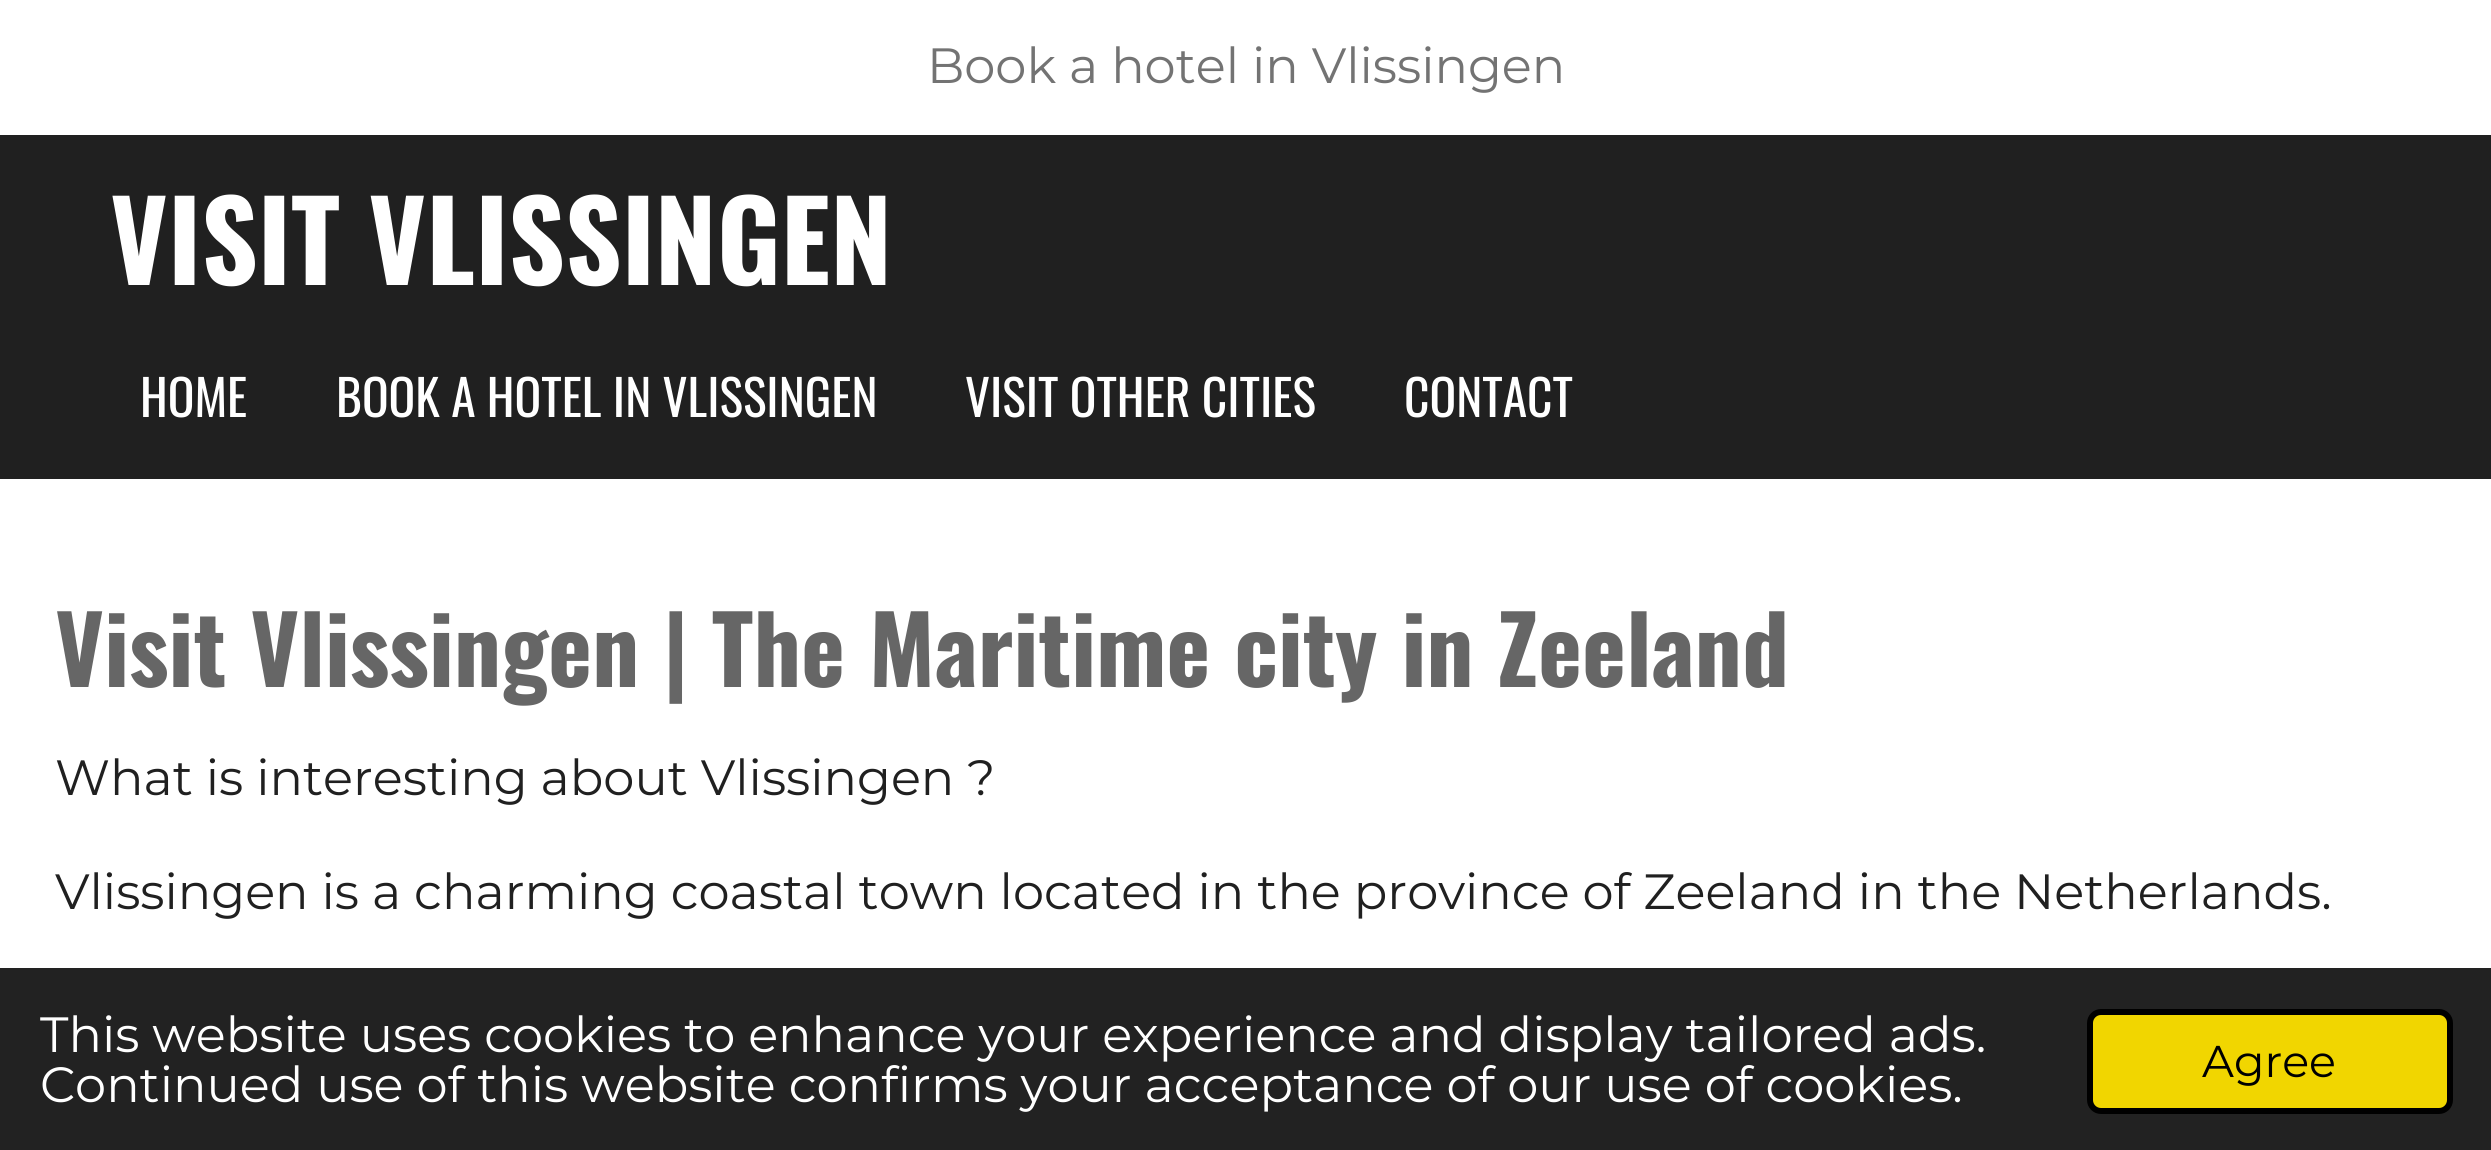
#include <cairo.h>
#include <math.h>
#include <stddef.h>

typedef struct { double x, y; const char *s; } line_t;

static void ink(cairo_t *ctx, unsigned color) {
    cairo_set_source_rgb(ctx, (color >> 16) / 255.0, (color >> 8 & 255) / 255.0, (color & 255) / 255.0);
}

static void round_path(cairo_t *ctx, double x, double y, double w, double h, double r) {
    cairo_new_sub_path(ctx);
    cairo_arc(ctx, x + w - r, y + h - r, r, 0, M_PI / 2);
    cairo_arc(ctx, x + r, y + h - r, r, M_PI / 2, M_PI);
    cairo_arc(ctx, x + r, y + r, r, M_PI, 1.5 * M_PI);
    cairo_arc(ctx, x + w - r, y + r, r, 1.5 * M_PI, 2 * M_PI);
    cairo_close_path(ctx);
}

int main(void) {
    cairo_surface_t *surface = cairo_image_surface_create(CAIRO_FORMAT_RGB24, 2491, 1150);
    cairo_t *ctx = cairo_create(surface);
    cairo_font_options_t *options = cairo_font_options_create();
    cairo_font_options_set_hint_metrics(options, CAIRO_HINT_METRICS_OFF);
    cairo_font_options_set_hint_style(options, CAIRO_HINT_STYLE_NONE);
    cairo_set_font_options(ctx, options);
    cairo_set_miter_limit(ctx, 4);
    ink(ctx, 0xFFFFFF);
    cairo_paint(ctx);
    ink(ctx, 0x202020);
    cairo_rectangle(ctx, 0, 135, 2491, 344);
    cairo_fill(ctx);
    cairo_select_font_face(ctx, "Montserrat", CAIRO_FONT_SLANT_NORMAL, CAIRO_FONT_WEIGHT_NORMAL);
    cairo_set_font_size(ctx, 49.5);
    ink(ctx, 0x737373);
    cairo_move_to(ctx, 927, 83);
    cairo_show_text(ctx, "Book a hotel in Vlissingen");
    cairo_select_font_face(ctx, "Oswald", CAIRO_FONT_SLANT_NORMAL, CAIRO_FONT_WEIGHT_BOLD);
    cairo_set_font_size(ctx, 110.25);
    ink(ctx, 0xFFFFFF);
    cairo_move_to(ctx, 110, 285);
    cairo_show_text(ctx, "VISIT VLISSINGEN");
    cairo_select_font_face(ctx, "Oswald", CAIRO_FONT_SLANT_NORMAL, CAIRO_FONT_WEIGHT_NORMAL);
    cairo_set_font_size(ctx, 49.5);
    {
        static const line_t items[] = {
            {140, 417, "HOME"},
            {336, 417, "BOOK A HOTEL IN VLISSINGEN"},
            {965, 417, "VISIT OTHER CITIES"},
            {1404, 417, "CONTACT"},
        };
        for (size_t i = 0; i < sizeof items / sizeof *items; i++) {
            cairo_move_to(ctx, items[i].x, items[i].y);
            cairo_show_text(ctx, items[i].s);
        }
    }
    cairo_select_font_face(ctx, "Oswald", CAIRO_FONT_SLANT_NORMAL, CAIRO_FONT_WEIGHT_BOLD);
    cairo_set_font_size(ctx, 93.5);
    ink(ctx, 0x666666);
    cairo_move_to(ctx, 55, 687);
    cairo_show_text(ctx, "Visit Vlissingen | The Maritime city in Zeeland");
    cairo_select_font_face(ctx, "Montserrat", CAIRO_FONT_SLANT_NORMAL, CAIRO_FONT_WEIGHT_NORMAL);
    cairo_set_font_size(ctx, 49.5);
    ink(ctx, 0x202020);
    cairo_move_to(ctx, 55, 795);
    cairo_show_text(ctx, "What is interesting about Vlissingen ?");
    cairo_move_to(ctx, 55, 909);
    cairo_show_text(ctx, "Vlissingen is a charming coastal town located in the province of Zeeland in the Netherlands.");
    ink(ctx, 0x222222);
    cairo_rectangle(ctx, 0, 968, 2491, 182);
    cairo_fill(ctx);
    ink(ctx, 0xFFFFFF);
    cairo_move_to(ctx, 40, 1052);
    cairo_show_text(ctx, "This website uses cookies to enhance your experience and display tailored ads.");
    cairo_move_to(ctx, 40, 1102);
    cairo_show_text(ctx, "Continued use of this website confirms your acceptance of our use of cookies.");
    ink(ctx, 0xF1D600);
    round_path(ctx, 2090, 1012, 360, 99, 11);
    cairo_fill_preserve(ctx);
    ink(ctx, 0x000000);
    cairo_set_line_width(ctx, 6);
    cairo_stroke(ctx);
    cairo_set_font_size(ctx, 44.5);
    cairo_move_to(ctx, 2202, 1077);
    cairo_show_text(ctx, "Agree");
    cairo_surface_write_to_png(surface, "image.png");
    cairo_font_options_destroy(options);
    cairo_destroy(ctx);
    cairo_surface_destroy(surface);
    return 0;
}
